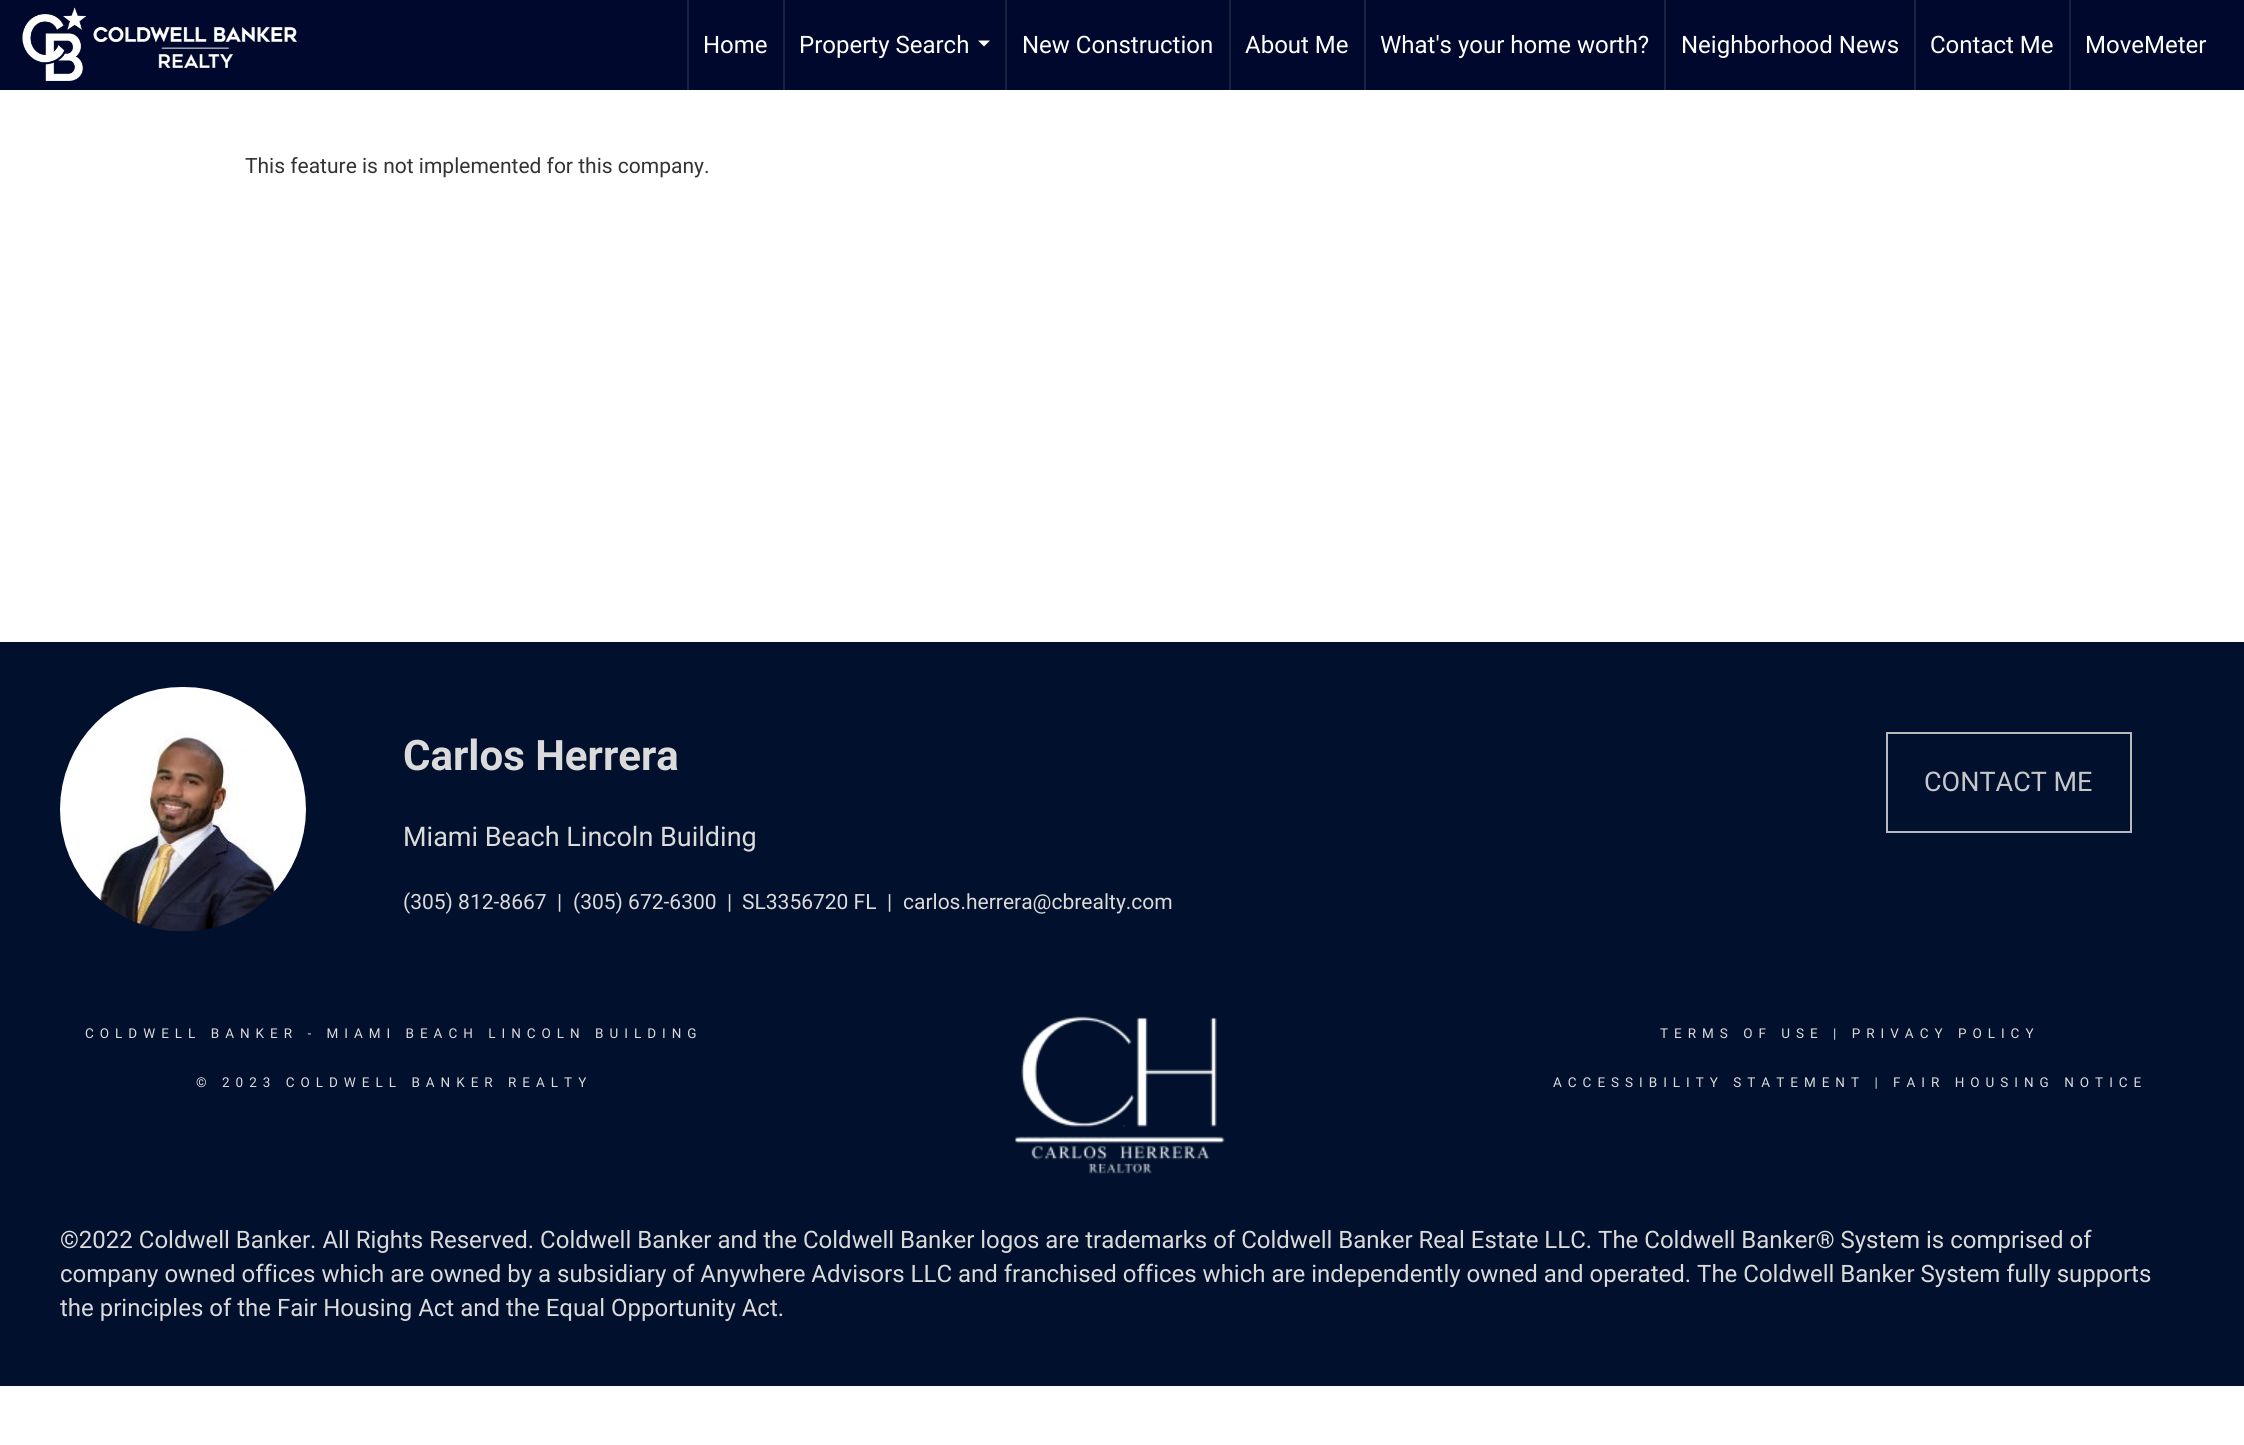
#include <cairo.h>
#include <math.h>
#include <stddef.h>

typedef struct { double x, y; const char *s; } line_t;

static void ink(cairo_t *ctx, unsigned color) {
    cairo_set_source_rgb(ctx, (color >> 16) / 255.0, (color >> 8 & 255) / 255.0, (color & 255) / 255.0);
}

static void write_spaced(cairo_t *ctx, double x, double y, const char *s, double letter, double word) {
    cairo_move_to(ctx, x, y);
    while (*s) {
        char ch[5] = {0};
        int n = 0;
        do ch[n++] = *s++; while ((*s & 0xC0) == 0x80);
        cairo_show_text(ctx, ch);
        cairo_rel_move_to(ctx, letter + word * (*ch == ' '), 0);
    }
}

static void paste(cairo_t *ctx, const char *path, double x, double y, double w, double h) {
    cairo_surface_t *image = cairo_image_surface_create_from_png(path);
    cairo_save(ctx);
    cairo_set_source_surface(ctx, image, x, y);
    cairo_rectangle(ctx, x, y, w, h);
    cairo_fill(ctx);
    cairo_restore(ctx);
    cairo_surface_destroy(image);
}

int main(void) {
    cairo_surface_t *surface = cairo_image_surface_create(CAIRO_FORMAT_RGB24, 2244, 1445);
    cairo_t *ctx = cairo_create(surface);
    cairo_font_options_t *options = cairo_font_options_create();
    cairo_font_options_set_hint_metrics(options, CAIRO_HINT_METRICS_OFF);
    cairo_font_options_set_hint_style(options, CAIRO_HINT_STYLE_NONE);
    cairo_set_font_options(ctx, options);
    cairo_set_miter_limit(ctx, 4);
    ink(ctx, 0xFFFFFF);
    cairo_paint(ctx);
    ink(ctx, 0x00092D);
    cairo_rectangle(ctx, 0, 0, 2244, 90);
    cairo_fill(ctx);
    paste(ctx, "media/1.png", 22, 7, 275, 74);
    ink(ctx, 0x1A2242);
    cairo_rectangle(ctx, 687, 0, 2, 90);
    cairo_fill(ctx);
    cairo_select_font_face(ctx, "Roboto", CAIRO_FONT_SLANT_NORMAL, CAIRO_FONT_WEIGHT_NORMAL);
    cairo_set_font_size(ctx, 24);
    ink(ctx, 0xFFFFFF);
    cairo_move_to(ctx, 703, 53);
    cairo_show_text(ctx, "Home");
    ink(ctx, 0x1A2242);
    cairo_rectangle(ctx, 783, 0, 2, 90);
    cairo_fill(ctx);
    ink(ctx, 0xFFFFFF);
    cairo_move_to(ctx, 799, 53);
    cairo_show_text(ctx, "Property Search");
    cairo_new_path(ctx);
    cairo_move_to(ctx, 978, 40.5);
    cairo_line_to(ctx, 990, 40.5);
    cairo_line_to(ctx, 984, 46.5);
    cairo_close_path(ctx);
    cairo_fill(ctx);
    ink(ctx, 0x1A2242);
    cairo_rectangle(ctx, 1005, 0, 2, 90);
    cairo_fill(ctx);
    ink(ctx, 0xFFFFFF);
    cairo_move_to(ctx, 1022, 53);
    cairo_show_text(ctx, "New Construction");
    ink(ctx, 0x1A2242);
    cairo_rectangle(ctx, 1229, 0, 2, 90);
    cairo_fill(ctx);
    ink(ctx, 0xFFFFFF);
    cairo_move_to(ctx, 1245, 53);
    cairo_show_text(ctx, "About Me");
    ink(ctx, 0x1A2242);
    cairo_rectangle(ctx, 1364, 0, 2, 90);
    cairo_fill(ctx);
    ink(ctx, 0xFFFFFF);
    cairo_move_to(ctx, 1380, 53);
    cairo_show_text(ctx, "What's your home worth?");
    ink(ctx, 0x1A2242);
    cairo_rectangle(ctx, 1664, 0, 2, 90);
    cairo_fill(ctx);
    ink(ctx, 0xFFFFFF);
    cairo_move_to(ctx, 1681, 53);
    cairo_show_text(ctx, "Neighborhood News");
    ink(ctx, 0x1A2242);
    cairo_rectangle(ctx, 1914, 0, 2, 90);
    cairo_fill(ctx);
    ink(ctx, 0xFFFFFF);
    cairo_move_to(ctx, 1930, 53);
    cairo_show_text(ctx, "Contact Me");
    ink(ctx, 0x1A2242);
    cairo_rectangle(ctx, 2069, 0, 2, 90);
    cairo_fill(ctx);
    ink(ctx, 0xFFFFFF);
    cairo_move_to(ctx, 2085, 53);
    cairo_show_text(ctx, "MoveMeter");
    cairo_set_font_size(ctx, 21);
    ink(ctx, 0x333333);
    cairo_move_to(ctx, 245, 173);
    cairo_show_text(ctx, "This feature is not implemented for this company.");
    ink(ctx, 0x00102D);
    cairo_rectangle(ctx, 0, 642, 2244, 744);
    cairo_fill(ctx);
    paste(ctx, "media/2.png", 60, 687, 246, 245);
    cairo_select_font_face(ctx, "Roboto", CAIRO_FONT_SLANT_NORMAL, CAIRO_FONT_WEIGHT_BOLD);
    cairo_set_font_size(ctx, 42);
    ink(ctx, 0xDBDBDB);
    cairo_move_to(ctx, 403, 770);
    cairo_show_text(ctx, "Carlos Herrera");
    cairo_select_font_face(ctx, "Roboto", CAIRO_FONT_SLANT_NORMAL, CAIRO_FONT_WEIGHT_NORMAL);
    cairo_set_font_size(ctx, 27);
    cairo_move_to(ctx, 403, 846);
    cairo_show_text(ctx, "Miami Beach Lincoln Building");
    cairo_set_font_size(ctx, 21);
    {
        static const line_t items[] = {
            {403, 909, "(305) 812-8667"},
            {557, 909, "|"},
            {573, 909, "(305) 672-6300"},
            {727, 909, "|"},
            {742, 909, "SL3356720 FL"},
            {887, 909, "|"},
            {903, 909, "carlos.herrera@cbrealty.com"},
        };
        for (size_t i = 0; i < sizeof items / sizeof *items; i++) {
            cairo_move_to(ctx, items[i].x, items[i].y);
            cairo_show_text(ctx, items[i].s);
        }
    }
    cairo_rectangle(ctx, 1887, 733, 244, 99);
    ink(ctx, 0xB8B9BC);
    cairo_stroke(ctx);
    cairo_set_font_size(ctx, 27);
    ink(ctx, 0xC5C7CA);
    cairo_move_to(ctx, 1924, 791);
    cairo_show_text(ctx, "CONTACT ME");
    cairo_set_font_size(ctx, 13.5);
    ink(ctx, 0xDBDBDB);
    write_spaced(ctx, 85, 1038, "COLDWELL BANKER - MIAMI BEACH LINCOLN BUILDING", 6, 0);
    write_spaced(ctx, 196, 1087, "© 2023 COLDWELL BANKER REALTY", 6, 0);
    paste(ctx, "media/3.png", 1015, 1016, 210, 158);
    write_spaced(ctx, 1660, 1038, "TERMS OF USE | PRIVACY POLICY", 6, 0);
    write_spaced(ctx, 1553, 1087, "ACCESSIBILITY STATEMENT | FAIR HOUSING NOTICE", 6, 0);
    cairo_set_font_size(ctx, 24);
    {
        static const line_t items[] = {
            {60, 1248, "©2022 Coldwell Banker. All Rights Reserved. Coldwell Banker and the Coldwell Banker logos are trademarks of Coldwell Banker Real Estate LLC. The Coldwell Banker® System is comprised of"},
            {60, 1282, "company owned offices which are owned by a subsidiary of Anywhere Advisors LLC and franchised offices which are independently owned and operated. The Coldwell Banker System fully supports"},
            {60, 1316, "the principles of the Fair Housing Act and the Equal Opportunity Act."},
        };
        for (size_t i = 0; i < sizeof items / sizeof *items; i++) {
            cairo_move_to(ctx, items[i].x, items[i].y);
            cairo_show_text(ctx, items[i].s);
        }
    }
    cairo_surface_write_to_png(surface, "image.png");
    cairo_font_options_destroy(options);
    cairo_destroy(ctx);
    cairo_surface_destroy(surface);
    return 0;
}
